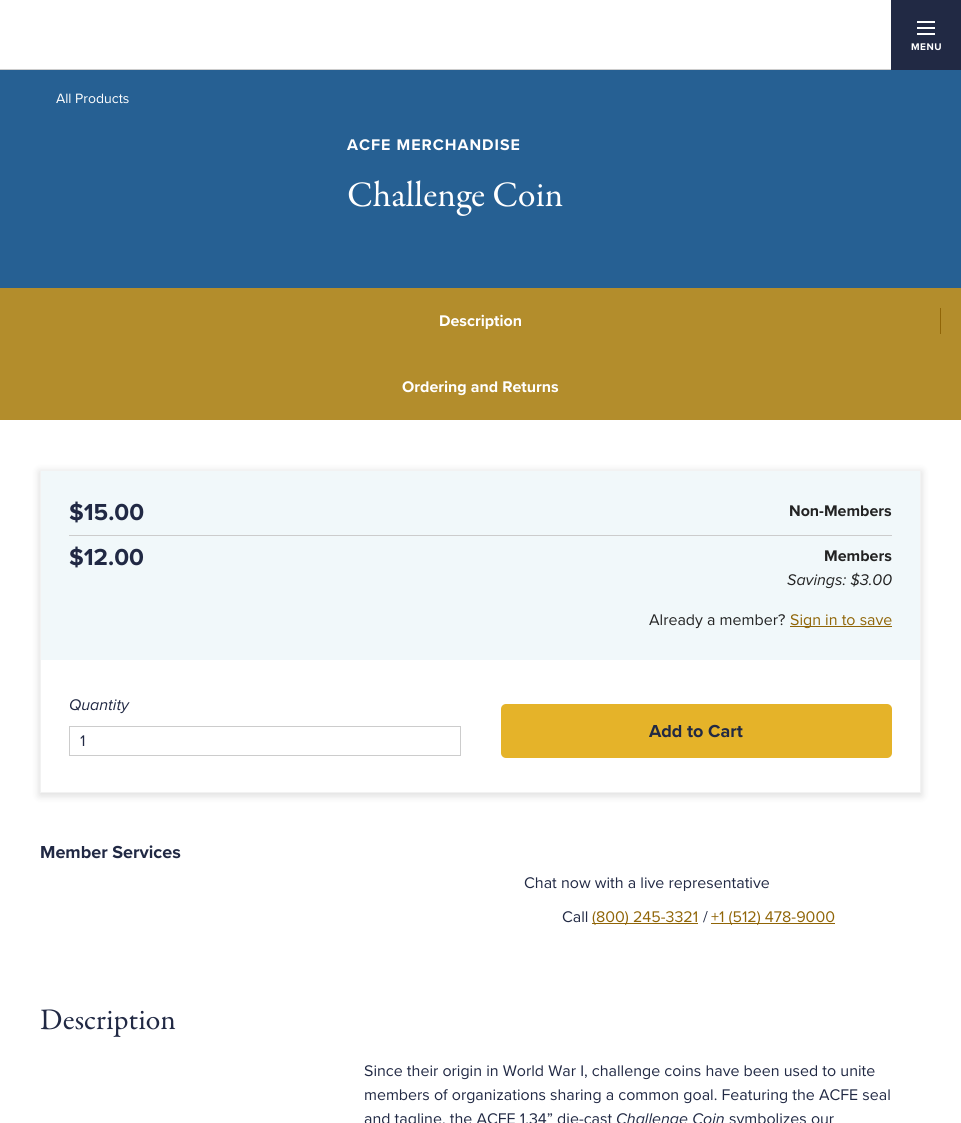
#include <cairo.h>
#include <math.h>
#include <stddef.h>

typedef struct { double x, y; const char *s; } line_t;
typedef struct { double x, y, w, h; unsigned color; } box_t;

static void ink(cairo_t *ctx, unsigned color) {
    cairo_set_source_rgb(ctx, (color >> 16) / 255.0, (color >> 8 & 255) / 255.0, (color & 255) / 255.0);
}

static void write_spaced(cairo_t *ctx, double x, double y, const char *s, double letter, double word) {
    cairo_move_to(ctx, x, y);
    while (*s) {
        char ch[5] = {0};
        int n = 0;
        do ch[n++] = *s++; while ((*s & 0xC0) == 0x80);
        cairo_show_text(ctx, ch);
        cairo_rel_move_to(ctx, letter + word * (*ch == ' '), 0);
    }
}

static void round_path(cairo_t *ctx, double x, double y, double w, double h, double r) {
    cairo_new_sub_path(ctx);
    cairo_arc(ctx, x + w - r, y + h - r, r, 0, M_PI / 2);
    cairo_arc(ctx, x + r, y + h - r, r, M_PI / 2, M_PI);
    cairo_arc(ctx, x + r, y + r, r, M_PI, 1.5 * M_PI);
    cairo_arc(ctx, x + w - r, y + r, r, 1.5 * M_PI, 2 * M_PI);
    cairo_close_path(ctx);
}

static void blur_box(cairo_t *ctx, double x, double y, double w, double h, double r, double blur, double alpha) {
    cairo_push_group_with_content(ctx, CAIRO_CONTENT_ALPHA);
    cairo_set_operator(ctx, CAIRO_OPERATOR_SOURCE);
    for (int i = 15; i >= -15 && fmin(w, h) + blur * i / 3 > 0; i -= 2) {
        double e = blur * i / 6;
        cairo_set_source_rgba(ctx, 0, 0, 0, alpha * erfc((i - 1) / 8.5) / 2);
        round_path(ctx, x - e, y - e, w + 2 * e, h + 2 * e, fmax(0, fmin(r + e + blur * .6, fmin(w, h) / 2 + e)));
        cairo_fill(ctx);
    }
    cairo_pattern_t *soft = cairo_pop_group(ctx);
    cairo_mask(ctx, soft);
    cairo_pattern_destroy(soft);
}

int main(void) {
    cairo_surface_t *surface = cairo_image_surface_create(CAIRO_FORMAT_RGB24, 961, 1123);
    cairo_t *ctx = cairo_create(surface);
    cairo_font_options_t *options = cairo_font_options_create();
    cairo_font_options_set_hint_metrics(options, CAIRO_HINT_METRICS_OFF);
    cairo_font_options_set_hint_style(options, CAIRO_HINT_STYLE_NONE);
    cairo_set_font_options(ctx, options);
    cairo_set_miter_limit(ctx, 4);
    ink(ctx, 0xFFFFFF);
    cairo_paint(ctx);
    {
        static const box_t items[] = {
            {0, 69, 891, 1, 0xCCCCCC},
            {891, 0, 70, 70, 0x212944},
            {917, 21, 18, 2, 0xFFFFFF},
            {917, 27, 18, 2, 0xFFFFFF},
            {917, 33, 18, 2, 0xFFFFFF},
        };
        for (size_t i = 0; i < sizeof items / sizeof *items; i++) {
            ink(ctx, items[i].color);
            cairo_rectangle(ctx, items[i].x, items[i].y, items[i].w, items[i].h);
            cairo_fill(ctx);
        }
    }
    cairo_select_font_face(ctx, "Proxima Nova", CAIRO_FONT_SLANT_NORMAL, CAIRO_FONT_WEIGHT_BOLD);
    cairo_set_font_size(ctx, 10);
    write_spaced(ctx, 911, 50, "MENU", 0.5, 0);
    ink(ctx, 0x266093);
    cairo_rectangle(ctx, 0, 70, 961, 218);
    cairo_fill(ctx);
    cairo_select_font_face(ctx, "Proxima Nova", CAIRO_FONT_SLANT_NORMAL, CAIRO_FONT_WEIGHT_NORMAL);
    cairo_set_font_size(ctx, 14);
    ink(ctx, 0xFFFFFF);
    cairo_move_to(ctx, 56, 103);
    cairo_show_text(ctx, "All Products");
    cairo_select_font_face(ctx, "Proxima Nova", CAIRO_FONT_SLANT_NORMAL, CAIRO_FONT_WEIGHT_BOLD);
    cairo_set_font_size(ctx, 16);
    write_spaced(ctx, 347, 150, "ACFE MERCHANDISE", 1, 0);
    cairo_select_font_face(ctx, "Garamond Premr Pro", CAIRO_FONT_SLANT_NORMAL, CAIRO_FONT_WEIGHT_NORMAL);
    cairo_set_font_size(ctx, 36);
    cairo_move_to(ctx, 347, 206);
    cairo_show_text(ctx, "Challenge Coin");
    ink(ctx, 0xB38D2C);
    cairo_rectangle(ctx, 0, 288, 961, 132);
    cairo_fill(ctx);
    cairo_select_font_face(ctx, "Proxima Nova", CAIRO_FONT_SLANT_NORMAL, CAIRO_FONT_WEIGHT_BOLD);
    cairo_set_font_size(ctx, 16);
    ink(ctx, 0xFFFFFF);
    cairo_move_to(ctx, 439, 326);
    cairo_show_text(ctx, "Description");
    ink(ctx, 0x906507);
    cairo_rectangle(ctx, 940, 308, 1, 26);
    cairo_fill(ctx);
    ink(ctx, 0xFFFFFF);
    cairo_move_to(ctx, 402, 392);
    cairo_show_text(ctx, "Ordering and Returns");
    cairo_save(ctx);
    cairo_set_fill_rule(ctx, CAIRO_FILL_RULE_EVEN_ODD);
    cairo_new_path(ctx);
    cairo_move_to(ctx, 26, 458);
    cairo_line_to(ctx, 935, 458);
    cairo_line_to(ctx, 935, 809);
    cairo_line_to(ctx, 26, 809);
    cairo_close_path(ctx);
    cairo_move_to(ctx, 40, 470);
    cairo_line_to(ctx, 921, 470);
    cairo_line_to(ctx, 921, 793);
    cairo_line_to(ctx, 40, 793);
    cairo_close_path(ctx);
    cairo_clip(ctx);
    ink(ctx, 0x232323);
    blur_box(ctx, 39, 471, 883, 325, 0, 4, 0.15);
    cairo_restore(ctx);
    cairo_rectangle(ctx, 40.5, 470.5, 880, 322);
    ink(ctx, 0xF2F2F2);
    cairo_set_line_width(ctx, 1);
    cairo_stroke(ctx);
    ink(ctx, 0xF1F8FA);
    cairo_rectangle(ctx, 41, 471, 879, 189);
    cairo_fill(ctx);
    cairo_set_font_size(ctx, 24);
    ink(ctx, 0x212944);
    cairo_move_to(ctx, 69, 520);
    cairo_show_text(ctx, "$15.00");
    cairo_set_font_size(ctx, 16);
    ink(ctx, 0x232323);
    cairo_move_to(ctx, 789, 516);
    cairo_show_text(ctx, "Non-Members");
    ink(ctx, 0xCCCCCC);
    cairo_rectangle(ctx, 69, 535, 823, 1);
    cairo_fill(ctx);
    cairo_set_font_size(ctx, 24);
    ink(ctx, 0x212944);
    cairo_move_to(ctx, 69, 565);
    cairo_show_text(ctx, "$12.00");
    cairo_set_font_size(ctx, 16);
    ink(ctx, 0x232323);
    cairo_move_to(ctx, 824, 561);
    cairo_show_text(ctx, "Members");
    cairo_select_font_face(ctx, "Proxima Nova", CAIRO_FONT_SLANT_ITALIC, CAIRO_FONT_WEIGHT_NORMAL);
    cairo_move_to(ctx, 787, 585);
    cairo_show_text(ctx, "Savings: $3.00");
    cairo_select_font_face(ctx, "Proxima Nova", CAIRO_FONT_SLANT_NORMAL, CAIRO_FONT_WEIGHT_NORMAL);
    cairo_move_to(ctx, 649, 625);
    cairo_show_text(ctx, "Already a member?");
    ink(ctx, 0x906507);
    cairo_rectangle(ctx, 790, 626, 102, 1);
    cairo_fill(ctx);
    cairo_move_to(ctx, 790, 625);
    cairo_show_text(ctx, "Sign in to save");
    cairo_select_font_face(ctx, "Proxima Nova", CAIRO_FONT_SLANT_ITALIC, CAIRO_FONT_WEIGHT_NORMAL);
    ink(ctx, 0x212944);
    cairo_move_to(ctx, 69, 710);
    cairo_show_text(ctx, "Quantity");
    cairo_rectangle(ctx, 69.5, 726.5, 391, 29);
    ink(ctx, 0xCCCCCC);
    cairo_stroke(ctx);
    cairo_select_font_face(ctx, "Proxima Nova", CAIRO_FONT_SLANT_NORMAL, CAIRO_FONT_WEIGHT_NORMAL);
    ink(ctx, 0x212944);
    cairo_move_to(ctx, 80, 746);
    cairo_show_text(ctx, "1");
    ink(ctx, 0xE5B329);
    round_path(ctx, 501, 704, 391, 54, 5);
    cairo_fill(ctx);
    cairo_select_font_face(ctx, "Proxima Nova", CAIRO_FONT_SLANT_NORMAL, CAIRO_FONT_WEIGHT_BOLD);
    cairo_set_font_size(ctx, 18);
    ink(ctx, 0x212944);
    cairo_move_to(ctx, 649, 737);
    cairo_show_text(ctx, "Add to Cart");
    cairo_move_to(ctx, 40, 858);
    cairo_show_text(ctx, "Member Services");
    cairo_select_font_face(ctx, "Proxima Nova", CAIRO_FONT_SLANT_NORMAL, CAIRO_FONT_WEIGHT_NORMAL);
    cairo_set_font_size(ctx, 16);
    cairo_move_to(ctx, 524, 888);
    cairo_show_text(ctx, "Chat now with a live representative");
    cairo_move_to(ctx, 562, 922);
    cairo_show_text(ctx, "Call");
    ink(ctx, 0x906507);
    cairo_rectangle(ctx, 592, 923, 106, 1);
    cairo_fill(ctx);
    cairo_move_to(ctx, 592, 922);
    cairo_show_text(ctx, "(800) 245-3321");
    ink(ctx, 0x212944);
    cairo_move_to(ctx, 703, 922);
    cairo_show_text(ctx, "/");
    ink(ctx, 0x906507);
    cairo_rectangle(ctx, 711, 923, 124, 1);
    cairo_fill(ctx);
    cairo_move_to(ctx, 711, 922);
    cairo_show_text(ctx, "+1 (512) 478-9000");
    cairo_select_font_face(ctx, "Garamond Premr Pro", CAIRO_FONT_SLANT_NORMAL, CAIRO_FONT_WEIGHT_NORMAL);
    cairo_set_font_size(ctx, 30);
    ink(ctx, 0x212944);
    cairo_move_to(ctx, 40, 1029);
    cairo_show_text(ctx, "Description");
    cairo_select_font_face(ctx, "Proxima Nova", CAIRO_FONT_SLANT_NORMAL, CAIRO_FONT_WEIGHT_NORMAL);
    cairo_set_font_size(ctx, 16);
    {
        static const line_t items[] = {
            {364, 1076, "Since their origin in World War I, challenge coins have been used to unite"},
            {364, 1100, "members of organizations sharing a common goal. Featuring the ACFE seal"},
            {364, 1124, "and tagline, the ACFE 1.34” die-cast"},
        };
        for (size_t i = 0; i < sizeof items / sizeof *items; i++) {
            cairo_move_to(ctx, items[i].x, items[i].y);
            cairo_show_text(ctx, items[i].s);
        }
    }
    cairo_select_font_face(ctx, "Proxima Nova", CAIRO_FONT_SLANT_ITALIC, CAIRO_FONT_WEIGHT_NORMAL);
    cairo_move_to(ctx, 616, 1124);
    cairo_show_text(ctx, "Challenge Coin");
    cairo_select_font_face(ctx, "Proxima Nova", CAIRO_FONT_SLANT_NORMAL, CAIRO_FONT_WEIGHT_NORMAL);
    cairo_move_to(ctx, 729, 1124);
    cairo_show_text(ctx, "symbolizes our");
    cairo_surface_write_to_png(surface, "image.png");
    cairo_font_options_destroy(options);
    cairo_destroy(ctx);
    cairo_surface_destroy(surface);
    return 0;
}
